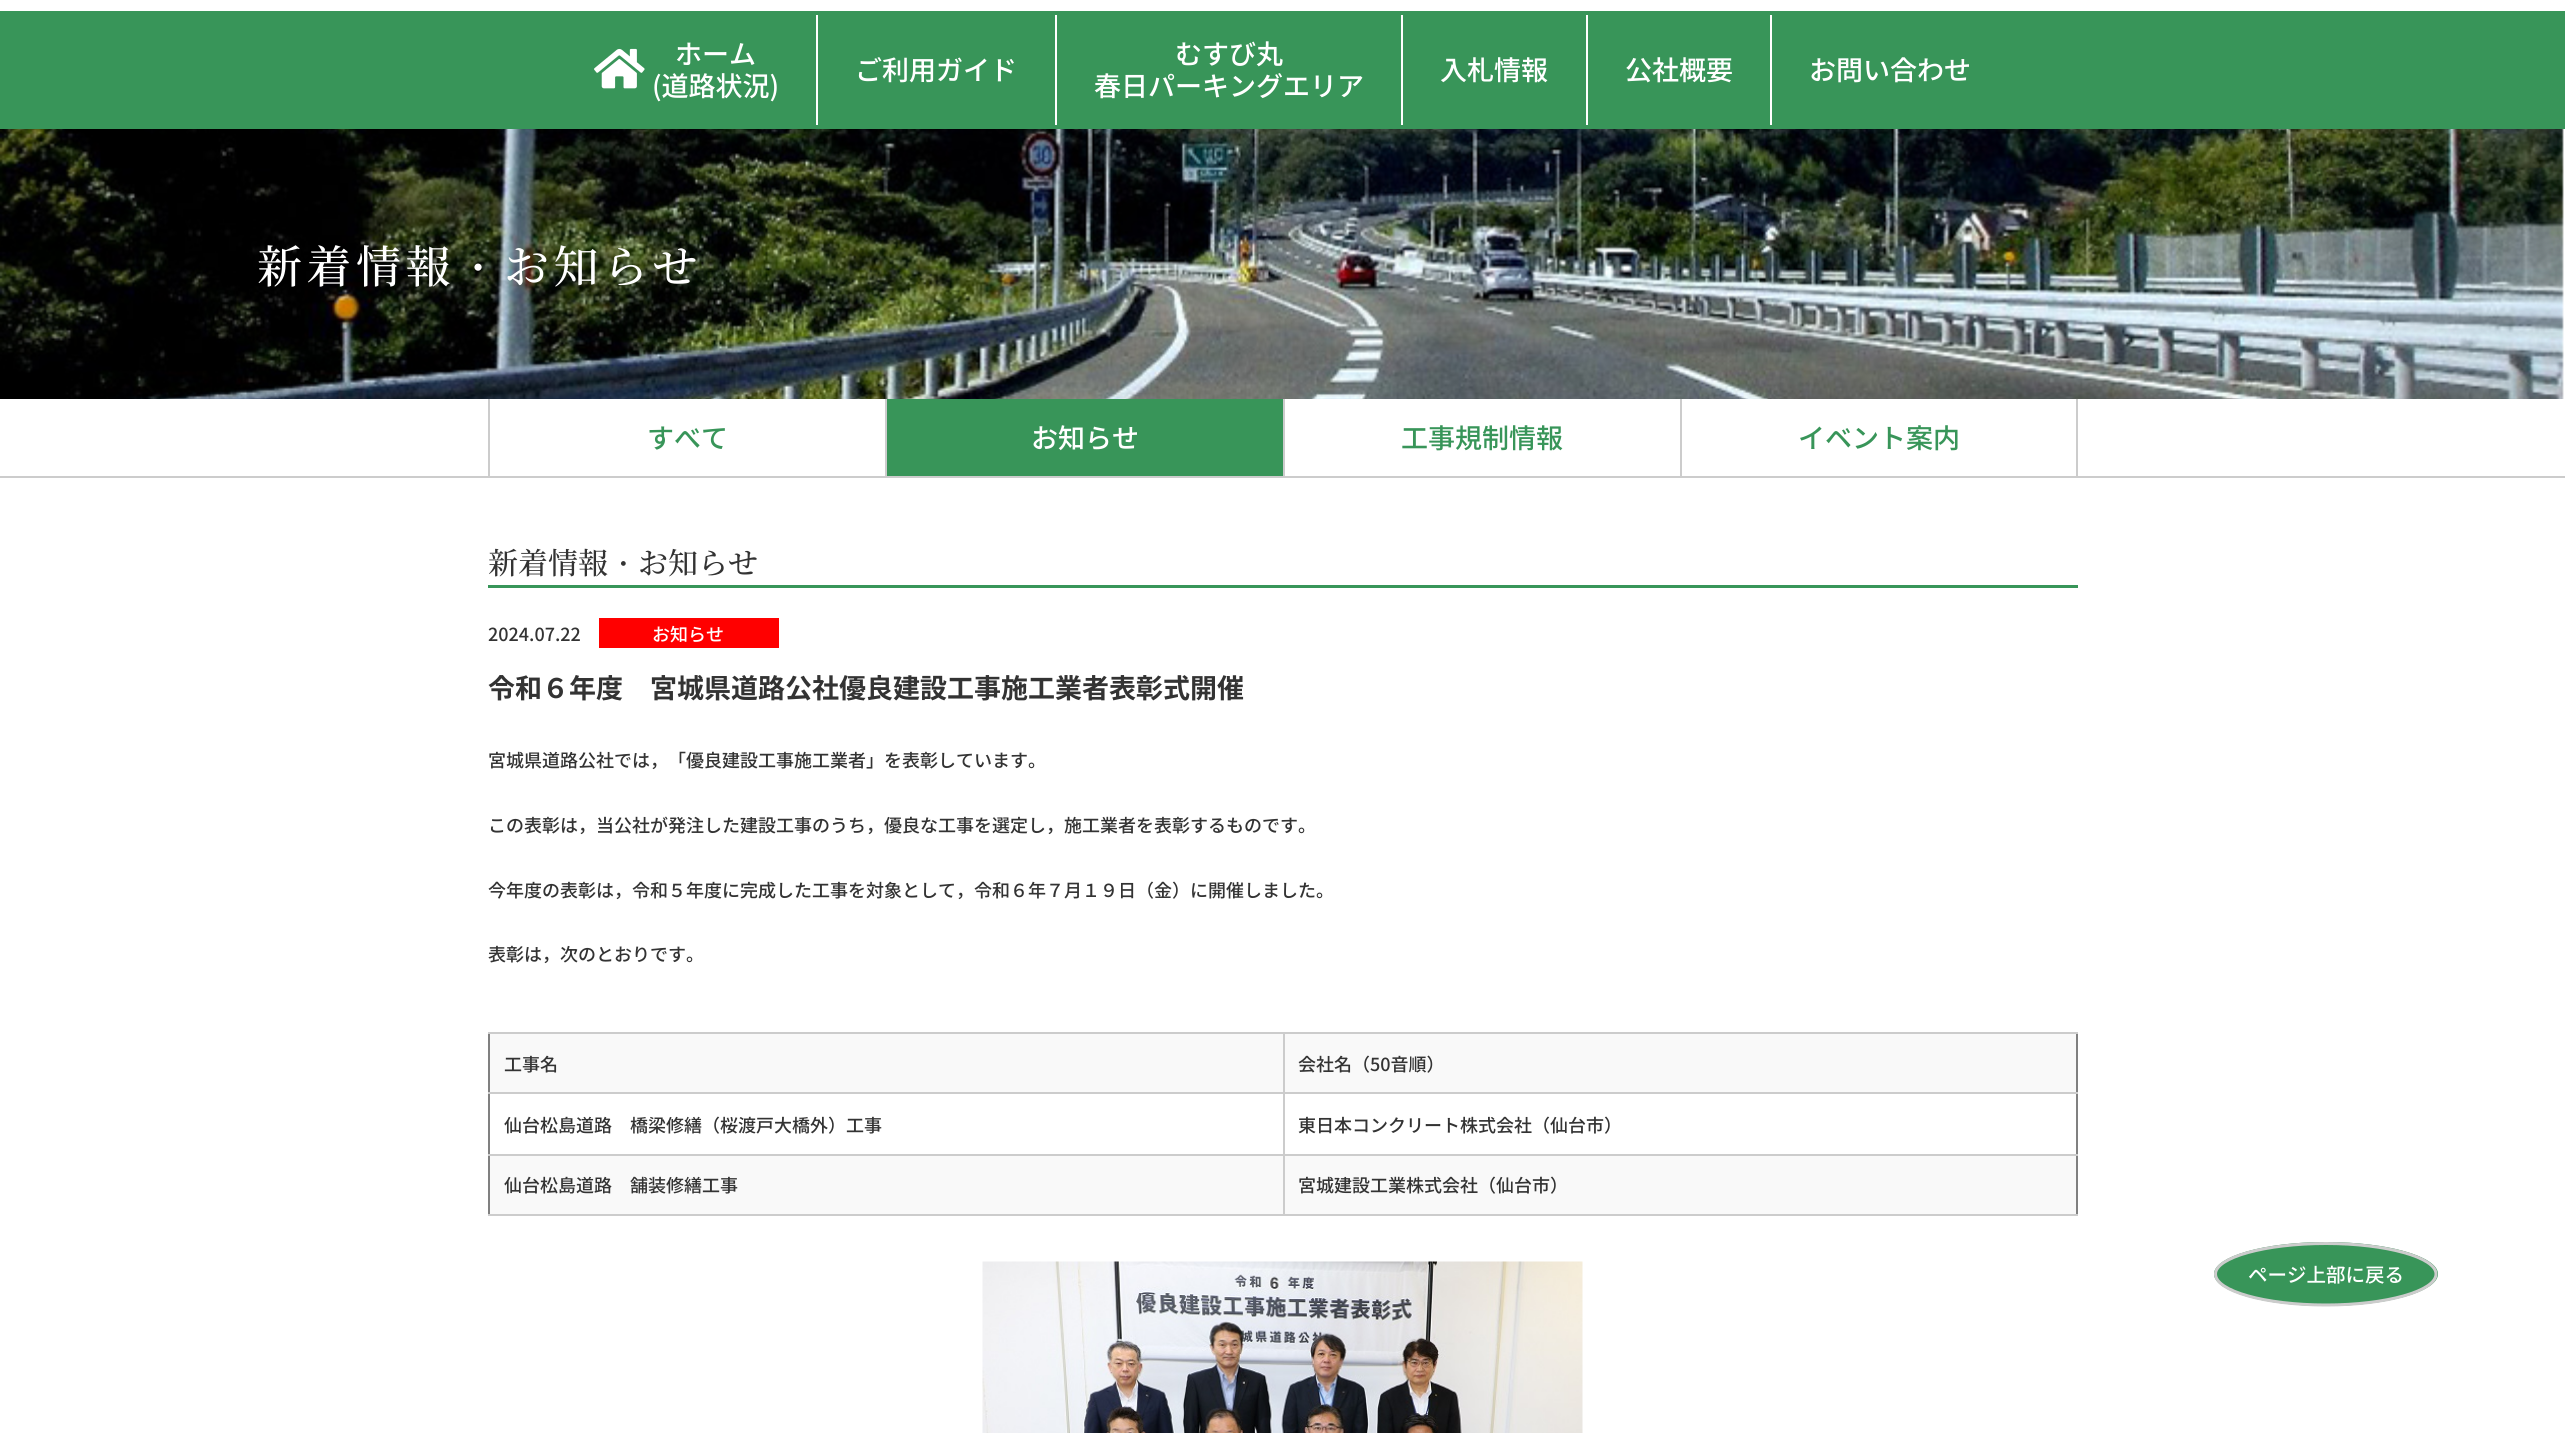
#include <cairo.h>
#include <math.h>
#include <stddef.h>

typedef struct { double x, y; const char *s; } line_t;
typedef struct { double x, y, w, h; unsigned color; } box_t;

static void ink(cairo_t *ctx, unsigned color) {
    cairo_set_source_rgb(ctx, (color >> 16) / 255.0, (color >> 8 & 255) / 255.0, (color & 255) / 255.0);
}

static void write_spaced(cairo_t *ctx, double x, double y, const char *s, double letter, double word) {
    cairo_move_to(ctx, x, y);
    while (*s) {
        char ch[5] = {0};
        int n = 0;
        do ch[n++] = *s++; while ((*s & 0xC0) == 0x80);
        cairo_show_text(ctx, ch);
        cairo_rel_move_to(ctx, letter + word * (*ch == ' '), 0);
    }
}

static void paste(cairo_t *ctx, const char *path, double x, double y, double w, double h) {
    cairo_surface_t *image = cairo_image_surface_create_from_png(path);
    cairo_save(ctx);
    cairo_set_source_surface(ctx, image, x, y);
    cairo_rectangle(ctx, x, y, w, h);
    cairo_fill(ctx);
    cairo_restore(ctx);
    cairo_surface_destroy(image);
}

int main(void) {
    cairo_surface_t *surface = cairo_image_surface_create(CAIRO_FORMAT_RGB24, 2565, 1433);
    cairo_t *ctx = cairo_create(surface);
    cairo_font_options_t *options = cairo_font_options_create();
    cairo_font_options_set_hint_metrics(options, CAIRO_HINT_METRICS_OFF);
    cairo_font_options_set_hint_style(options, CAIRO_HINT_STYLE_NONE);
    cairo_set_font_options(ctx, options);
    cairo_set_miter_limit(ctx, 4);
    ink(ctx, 0xFFFFFF);
    cairo_paint(ctx);
    ink(ctx, 0x389559);
    cairo_rectangle(ctx, 0, 11, 2565, 118);
    cairo_fill(ctx);
    paste(ctx, "media/1.png", 594, 48, 51, 41);
    cairo_select_font_face(ctx, "Noto Sans CJK JP Medium", CAIRO_FONT_SLANT_NORMAL, CAIRO_FONT_WEIGHT_NORMAL);
    cairo_set_font_size(ctx, 27);
    ink(ctx, 0xFFFFFF);
    cairo_move_to(ctx, 675, 64);
    cairo_show_text(ctx, "ホーム");
    cairo_move_to(ctx, 652, 96);
    cairo_show_text(ctx, "(道路状況)");
    cairo_rectangle(ctx, 816, 15, 2, 110);
    cairo_fill(ctx);
    cairo_move_to(ctx, 855, 80);
    cairo_show_text(ctx, "ご利用ガイド");
    cairo_rectangle(ctx, 1055, 15, 2, 110);
    cairo_fill(ctx);
    cairo_move_to(ctx, 1175, 64);
    cairo_show_text(ctx, "むすび丸");
    cairo_move_to(ctx, 1094, 96);
    cairo_show_text(ctx, "春日パーキングエリア");
    cairo_rectangle(ctx, 1401, 15, 2, 110);
    cairo_fill(ctx);
    cairo_move_to(ctx, 1440, 80);
    cairo_show_text(ctx, "入札情報");
    cairo_rectangle(ctx, 1586, 15, 2, 110);
    cairo_fill(ctx);
    cairo_move_to(ctx, 1625, 80);
    cairo_show_text(ctx, "公社概要");
    cairo_rectangle(ctx, 1770, 15, 2, 110);
    cairo_fill(ctx);
    cairo_move_to(ctx, 1809, 80);
    cairo_show_text(ctx, "お問い合わせ");
    ink(ctx, 0x389559);
    cairo_new_path(ctx);
    cairo_move_to(ctx, 2326, 1242);
    cairo_curve_to(ctx, 2388, 1242, 2438, 1256.5, 2438, 1274);
    cairo_curve_to(ctx, 2438, 1291.5, 2388, 1306, 2326, 1306);
    cairo_curve_to(ctx, 2264, 1306, 2214, 1291.5, 2214, 1274);
    cairo_curve_to(ctx, 2214, 1256.5, 2264, 1242, 2326, 1242);
    cairo_close_path(ctx);
    cairo_fill(ctx);
    cairo_new_path(ctx);
    cairo_move_to(ctx, 2326, 1243.5);
    cairo_curve_to(ctx, 2386.5, 1243.5, 2436, 1257.5, 2436, 1274);
    cairo_curve_to(ctx, 2436, 1291, 2386.5, 1305, 2326, 1305);
    cairo_curve_to(ctx, 2265, 1305, 2215.5, 1291, 2215.5, 1274);
    cairo_curve_to(ctx, 2215.5, 1257.5, 2265, 1243.5, 2326, 1243.5);
    cairo_close_path(ctx);
    ink(ctx, 0xCCCCCC);
    cairo_set_line_width(ctx, 3);
    cairo_stroke(ctx);
    cairo_set_font_size(ctx, 19.5);
    ink(ctx, 0xFFFFFF);
    cairo_move_to(ctx, 2248, 1282);
    cairo_show_text(ctx, "ページ上部に戻る");
    paste(ctx, "media/2.png", 0, 129, 2564, 270);
    cairo_select_font_face(ctx, "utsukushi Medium", CAIRO_FONT_SLANT_NORMAL, CAIRO_FONT_WEIGHT_NORMAL);
    cairo_set_font_size(ctx, 45);
    write_spaced(ctx, 257, 283, "新着情報", 4.5, 0);
    cairo_select_font_face(ctx, "WenQuanYi Zen Hei Medium", CAIRO_FONT_SLANT_NORMAL, CAIRO_FONT_WEIGHT_NORMAL);
    write_spaced(ctx, 455, 283, "・", 4.5, 0);
    cairo_select_font_face(ctx, "utsukushi Medium", CAIRO_FONT_SLANT_NORMAL, CAIRO_FONT_WEIGHT_NORMAL);
    write_spaced(ctx, 504, 283, "お知らせ", 4.5, 0);
    ink(ctx, 0xCCCCCC);
    cairo_rectangle(ctx, 0, 476, 2565, 2);
    cairo_fill(ctx);
    cairo_rectangle(ctx, 488, 399, 2, 77);
    cairo_fill(ctx);
    cairo_select_font_face(ctx, "Noto Sans CJK JP Medium", CAIRO_FONT_SLANT_NORMAL, CAIRO_FONT_WEIGHT_NORMAL);
    cairo_set_font_size(ctx, 27);
    ink(ctx, 0x389559);
    cairo_move_to(ctx, 647, 448);
    cairo_show_text(ctx, "すべて");
    ink(ctx, 0xCCCCCC);
    cairo_rectangle(ctx, 885, 399, 2, 77);
    cairo_fill(ctx);
    ink(ctx, 0x389559);
    cairo_rectangle(ctx, 887, 399, 396, 77);
    cairo_fill(ctx);
    ink(ctx, 0xFFFFFF);
    cairo_move_to(ctx, 1031, 448);
    cairo_show_text(ctx, "お知らせ");
    ink(ctx, 0xCCCCCC);
    cairo_rectangle(ctx, 1283, 399, 2, 77);
    cairo_fill(ctx);
    ink(ctx, 0x389559);
    cairo_move_to(ctx, 1401, 448);
    cairo_show_text(ctx, "工事規制情報");
    ink(ctx, 0xCCCCCC);
    cairo_rectangle(ctx, 2076, 399, 2, 77);
    cairo_fill(ctx);
    cairo_rectangle(ctx, 1680, 399, 2, 77);
    cairo_fill(ctx);
    ink(ctx, 0x389559);
    cairo_move_to(ctx, 1798, 448);
    cairo_show_text(ctx, "イベント案内");
    cairo_rectangle(ctx, 488, 585, 1590, 3);
    cairo_fill(ctx);
    cairo_select_font_face(ctx, "utsukushi Medium", CAIRO_FONT_SLANT_NORMAL, CAIRO_FONT_WEIGHT_NORMAL);
    cairo_set_font_size(ctx, 30);
    ink(ctx, 0x333333);
    cairo_move_to(ctx, 488, 574);
    cairo_show_text(ctx, "新着情報");
    cairo_select_font_face(ctx, "WenQuanYi Zen Hei Medium", CAIRO_FONT_SLANT_NORMAL, CAIRO_FONT_WEIGHT_NORMAL);
    cairo_move_to(ctx, 608, 574);
    cairo_show_text(ctx, "・");
    cairo_select_font_face(ctx, "utsukushi Medium", CAIRO_FONT_SLANT_NORMAL, CAIRO_FONT_WEIGHT_NORMAL);
    cairo_move_to(ctx, 638, 574);
    cairo_show_text(ctx, "お知らせ");
    cairo_select_font_face(ctx, "Noto Sans CJK JP Medium", CAIRO_FONT_SLANT_NORMAL, CAIRO_FONT_WEIGHT_NORMAL);
    cairo_set_font_size(ctx, 18);
    cairo_move_to(ctx, 488, 641);
    cairo_show_text(ctx, "2024.07.22");
    ink(ctx, 0xFF0000);
    cairo_rectangle(ctx, 599, 618, 180, 30);
    cairo_fill(ctx);
    ink(ctx, 0xFFFFFF);
    cairo_move_to(ctx, 652, 641);
    cairo_show_text(ctx, "お知らせ");
    cairo_select_font_face(ctx, "Noto Sans CJK JP", CAIRO_FONT_SLANT_NORMAL, CAIRO_FONT_WEIGHT_BOLD);
    cairo_set_font_size(ctx, 27);
    ink(ctx, 0x333333);
    cairo_move_to(ctx, 488, 698);
    cairo_show_text(ctx, "令和６年度　宮城県道路公社優良建設工事施工業者表彰式開催");
    cairo_select_font_face(ctx, "Noto Sans CJK JP Medium", CAIRO_FONT_SLANT_NORMAL, CAIRO_FONT_WEIGHT_NORMAL);
    cairo_set_font_size(ctx, 18);
    {
        static const line_t items[] = {
            {488, 767, "宮城県道路公社では，「優良建設工事施工業者」を表彰しています。"},
            {488, 832, "この表彰は，当公社が発注した建設工事のうち，優良な工事を選定し，施工業者を表彰するものです。"},
            {488, 897, "今年度の表彰は，令和５年度に完成した工事を対象として，令和６年７月１９日（金）に開催しました。"},
            {488, 961, "表彰は，次のとおりです。"},
        };
        for (size_t i = 0; i < sizeof items / sizeof *items; i++) {
            cairo_move_to(ctx, items[i].x, items[i].y);
            cairo_show_text(ctx, items[i].s);
        }
    }
    {
        static const box_t items[] = {
            {2076, 1032, 2, 183, 0x808080},
            {488, 1032, 2, 183, 0x808080},
            {490, 1034, 1586, 58, 0xF9F9F9},
            {1283, 1032, 795, 2, 0xCCCCCC},
            {1283, 1092, 795, 2, 0xCCCCCC},
            {1283, 1154, 795, 2, 0xCCCCCC},
            {490, 1156, 1586, 58, 0xF9F9F9},
            {1283, 1214, 795, 2, 0xCCCCCC},
            {1283, 1154, 2, 61, 0xCCCCCC},
            {488, 1154, 796, 2, 0xCCCCCC},
            {1283, 1092, 2, 63, 0xCCCCCC},
            {488, 1092, 796, 2, 0xCCCCCC},
            {1283, 1032, 2, 62, 0xCCCCCC},
            {488, 1032, 796, 2, 0xCCCCCC},
        };
        for (size_t i = 0; i < sizeof items / sizeof *items; i++) {
            ink(ctx, items[i].color);
            cairo_rectangle(ctx, items[i].x, items[i].y, items[i].w, items[i].h);
            cairo_fill(ctx);
        }
    }
    ink(ctx, 0x333333);
    {
        static const line_t items[] = {
            {504, 1071, "工事名"},
            {1298, 1071, "会社名（50音順）"},
            {504, 1132, "仙台松島道路　橋梁修繕（桜渡戸大橋外）工事"},
            {1298, 1132, "東日本コンクリート株式会社（仙台市）"},
        };
        for (size_t i = 0; i < sizeof items / sizeof *items; i++) {
            cairo_move_to(ctx, items[i].x, items[i].y);
            cairo_show_text(ctx, items[i].s);
        }
    }
    ink(ctx, 0xCCCCCC);
    cairo_rectangle(ctx, 488, 1214, 796, 2);
    cairo_fill(ctx);
    ink(ctx, 0x333333);
    cairo_move_to(ctx, 504, 1192);
    cairo_show_text(ctx, "仙台松島道路　舗装修繕工事");
    cairo_move_to(ctx, 1298, 1192);
    cairo_show_text(ctx, "宮城建設工業株式会社（仙台市）");
    paste(ctx, "media/3.png", 982, 1261, 601, 172);
    cairo_surface_write_to_png(surface, "image.png");
    cairo_font_options_destroy(options);
    cairo_destroy(ctx);
    cairo_surface_destroy(surface);
    return 0;
}
